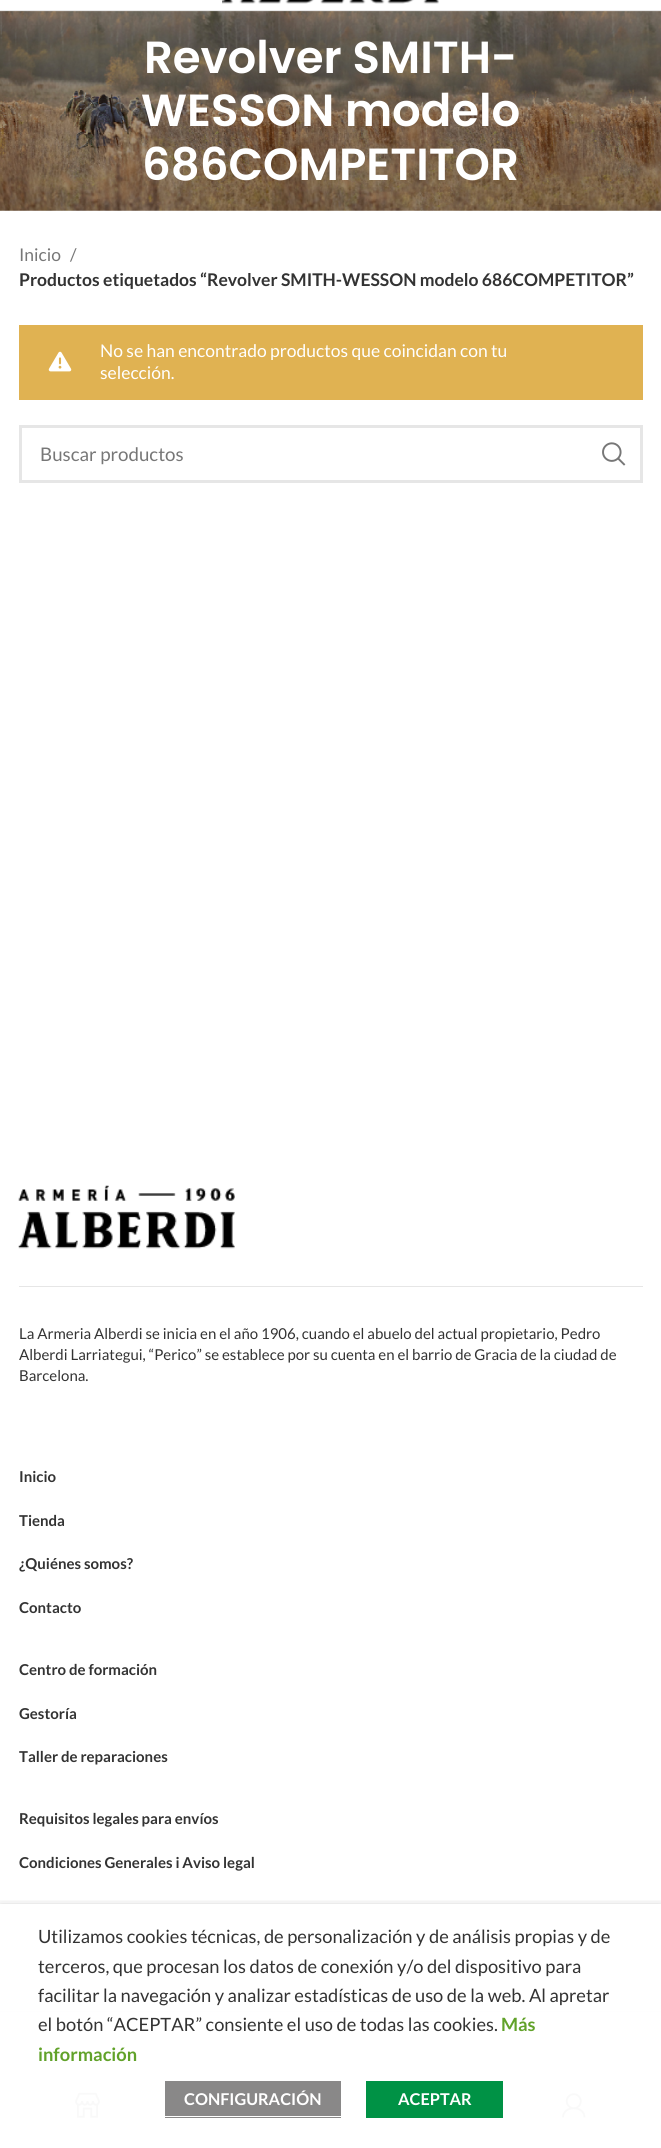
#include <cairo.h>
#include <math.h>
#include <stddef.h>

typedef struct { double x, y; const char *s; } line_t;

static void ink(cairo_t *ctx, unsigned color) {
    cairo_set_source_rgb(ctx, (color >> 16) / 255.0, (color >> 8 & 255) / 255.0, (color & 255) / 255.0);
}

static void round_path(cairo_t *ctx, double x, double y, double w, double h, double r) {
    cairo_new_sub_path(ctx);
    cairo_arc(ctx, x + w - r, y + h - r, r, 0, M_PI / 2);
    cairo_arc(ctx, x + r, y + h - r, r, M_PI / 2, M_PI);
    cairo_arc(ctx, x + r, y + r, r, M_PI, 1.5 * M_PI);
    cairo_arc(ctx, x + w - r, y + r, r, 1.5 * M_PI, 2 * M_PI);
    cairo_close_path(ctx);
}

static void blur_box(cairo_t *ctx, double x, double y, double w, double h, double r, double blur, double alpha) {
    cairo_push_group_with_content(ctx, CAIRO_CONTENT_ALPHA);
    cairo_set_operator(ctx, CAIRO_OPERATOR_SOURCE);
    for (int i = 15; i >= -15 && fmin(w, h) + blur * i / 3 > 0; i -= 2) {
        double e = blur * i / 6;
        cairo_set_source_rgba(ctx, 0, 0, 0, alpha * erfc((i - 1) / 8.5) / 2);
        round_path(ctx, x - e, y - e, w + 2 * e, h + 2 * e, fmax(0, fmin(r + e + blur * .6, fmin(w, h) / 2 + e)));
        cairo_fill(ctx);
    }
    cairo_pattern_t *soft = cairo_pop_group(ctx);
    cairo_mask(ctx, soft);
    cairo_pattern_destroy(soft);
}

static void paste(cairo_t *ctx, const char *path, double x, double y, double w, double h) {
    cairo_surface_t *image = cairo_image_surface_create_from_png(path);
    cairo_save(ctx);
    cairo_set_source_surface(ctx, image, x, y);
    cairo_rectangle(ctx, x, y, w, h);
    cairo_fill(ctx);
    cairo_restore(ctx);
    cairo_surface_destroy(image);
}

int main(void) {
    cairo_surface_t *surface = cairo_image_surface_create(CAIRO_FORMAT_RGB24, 661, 2148);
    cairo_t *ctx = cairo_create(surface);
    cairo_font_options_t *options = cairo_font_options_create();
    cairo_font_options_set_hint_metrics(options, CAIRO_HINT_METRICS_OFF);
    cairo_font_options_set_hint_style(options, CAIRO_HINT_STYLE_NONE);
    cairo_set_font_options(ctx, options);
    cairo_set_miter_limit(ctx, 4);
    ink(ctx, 0xFFFFFF);
    cairo_paint(ctx);
    ink(ctx, 0xE8E8E8);
    cairo_rectangle(ctx, 0, 10, 661, 1);
    cairo_fill(ctx);
    paste(ctx, "media/1.png", 222, 0, 217, 4);
    paste(ctx, "media/2.png", 0, 11, 661, 200);
    cairo_select_font_face(ctx, "Poppins SemiBold", CAIRO_FONT_SLANT_NORMAL, CAIRO_FONT_WEIGHT_NORMAL);
    cairo_set_font_size(ctx, 45);
    ink(ctx, 0xFFFFFF);
    {
        static const line_t items[] = {
            {144, 73, "Revolver SMITH-"},
            {141, 126, "WESSON modelo"},
            {142, 180, "686COMPETITOR"},
        };
        for (size_t i = 0; i < sizeof items / sizeof *items; i++) {
            cairo_move_to(ctx, items[i].x, items[i].y);
            cairo_show_text(ctx, items[i].s);
        }
    }
    cairo_select_font_face(ctx, "Lato", CAIRO_FONT_SLANT_NORMAL, CAIRO_FONT_WEIGHT_NORMAL);
    cairo_set_font_size(ctx, 17.5);
    ink(ctx, 0x777777);
    cairo_move_to(ctx, 19, 261);
    cairo_show_text(ctx, "Inicio");
    cairo_move_to(ctx, 70, 261);
    cairo_show_text(ctx, "/");
    cairo_select_font_face(ctx, "Lato", CAIRO_FONT_SLANT_NORMAL, CAIRO_FONT_WEIGHT_BOLD);
    ink(ctx, 0x333333);
    cairo_move_to(ctx, 19, 286);
    cairo_show_text(ctx, "Productos etiquetados “Revolver SMITH-WESSON modelo 686COMPETITOR”");
    ink(ctx, 0xE0B252);
    cairo_rectangle(ctx, 19, 325, 624, 75);
    cairo_fill(ctx);
    paste(ctx, "media/3.png", 48, 351, 24, 21);
    cairo_select_font_face(ctx, "Lato", CAIRO_FONT_SLANT_NORMAL, CAIRO_FONT_WEIGHT_NORMAL);
    ink(ctx, 0xFFFFFF);
    cairo_move_to(ctx, 100, 357);
    cairo_show_text(ctx, "No se han encontrado productos que coincidan con tu");
    cairo_move_to(ctx, 100, 379);
    cairo_show_text(ctx, "selección.");
    cairo_rectangle(ctx, 20.5, 426.5, 621, 55);
    ink(ctx, 0xE6E6E6);
    cairo_set_line_width(ctx, 3);
    cairo_stroke(ctx);
    cairo_set_font_size(ctx, 18.75);
    ink(ctx, 0x777777);
    cairo_move_to(ctx, 40, 461);
    cairo_show_text(ctx, "Buscar productos");
    paste(ctx, "media/4.png", 602, 442, 24, 24);
    ink(ctx, 0xE6E6E6);
    cairo_rectangle(ctx, 19, 1286, 624, 1);
    cairo_fill(ctx);
    paste(ctx, "media/5.png", 18, 1185, 217, 64);
    cairo_set_font_size(ctx, 15);
    ink(ctx, 0x333333);
    {
        static const line_t items[] = {
            {19, 1339, "La Armeria Alberdi se inicia en el año 1906, cuando el abuelo del actual propietario, Pedro"},
            {19, 1360, "Alberdi Larriategui, “Perico” se establece por su cuenta en el barrio de Gracia de la ciudad de"},
            {19, 1381, "Barcelona."},
        };
        for (size_t i = 0; i < sizeof items / sizeof *items; i++) {
            cairo_move_to(ctx, items[i].x, items[i].y);
            cairo_show_text(ctx, items[i].s);
        }
    }
    cairo_select_font_face(ctx, "Lato", CAIRO_FONT_SLANT_NORMAL, CAIRO_FONT_WEIGHT_BOLD);
    {
        static const line_t items[] = {
            {19, 1482, "Inicio"},
            {19, 1526, "Tienda"},
            {19, 1569, "¿Quiénes somos?"},
            {19, 1613, "Contacto"},
            {19, 1675, "Centro de formación"},
            {19, 1719, "Gestoría"},
            {19, 1762, "Taller de reparaciones"},
            {19, 1824, "Requisitos legales para envíos"},
            {19, 1868, "Condiciones Generales i Aviso legal"},
        };
        for (size_t i = 0; i < sizeof items / sizeof *items; i++) {
            cairo_move_to(ctx, items[i].x, items[i].y);
            cairo_show_text(ctx, items[i].s);
        }
    }
    ink(ctx, 0xE4E4E4);
    cairo_rectangle(ctx, 0, 2011, 661, 1);
    cairo_fill(ctx);
    cairo_save(ctx);
    cairo_rectangle(ctx, 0, 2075, 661, 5);
    cairo_clip(ctx);
    ink(ctx, 0x000000);
    blur_box(ctx, 0, 2080, 661, 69, 0, 5.5, 0.12);
    cairo_restore(ctx);
    paste(ctx, "media/6.png", 75, 2092, 25, 26);
    paste(ctx, "media/7.png", 562, 2093, 24, 25);
    cairo_save(ctx);
    cairo_rectangle(ctx, 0, 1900, 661, 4);
    cairo_clip(ctx);
    ink(ctx, 0x000000);
    blur_box(ctx, 0, 1910, 661, 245, 0, 6, 0.5);
    cairo_restore(ctx);
    cairo_set_source_rgba(ctx, 1, 1, 1, 0.97);
    cairo_rectangle(ctx, 0, 2011, 661, 107);
    cairo_fill(ctx);
    cairo_select_font_face(ctx, "Lato", CAIRO_FONT_SLANT_NORMAL, CAIRO_FONT_WEIGHT_NORMAL);
    cairo_set_font_size(ctx, 18.3);
    ink(ctx, 0x333333);
    {
        static const line_t items[] = {
            {38, 1943, "Utilizamos cookies técnicas, de personalización y de análisis propias y de"},
            {38, 1973, "terceros, que procesan los datos de conexión y/o del dispositivo para"},
            {38, 2002, "facilitar la navegación y analizar estadísticas de uso de la web. Al apretar"},
            {38, 2031, "el botón “ACEPTAR” consiente el uso de todas las cookies."},
        };
        for (size_t i = 0; i < sizeof items / sizeof *items; i++) {
            cairo_move_to(ctx, items[i].x, items[i].y);
            cairo_show_text(ctx, items[i].s);
        }
    }
    cairo_select_font_face(ctx, "Lato", CAIRO_FONT_SLANT_NORMAL, CAIRO_FONT_WEIGHT_BOLD);
    ink(ctx, 0x61A229);
    cairo_move_to(ctx, 501, 2031);
    cairo_show_text(ctx, "Más");
    cairo_move_to(ctx, 38, 2061);
    cairo_show_text(ctx, "información");
    ink(ctx, 0x898888);
    cairo_rectangle(ctx, 165, 2081, 176, 37);
    cairo_fill(ctx);
    ink(ctx, 0xFFFFFF);
    cairo_rectangle(ctx, 165, 2116, 176, 1);
    cairo_fill(ctx);
    cairo_set_font_size(ctx, 16.25);
    cairo_move_to(ctx, 184, 2105);
    cairo_show_text(ctx, "CONFIGURACIÓN");
    ink(ctx, 0x009245);
    cairo_rectangle(ctx, 366, 2081, 137, 37);
    cairo_fill(ctx);
    ink(ctx, 0xFFFFFF);
    cairo_move_to(ctx, 398, 2105);
    cairo_show_text(ctx, "ACEPTAR");
    cairo_surface_write_to_png(surface, "image.png");
    cairo_font_options_destroy(options);
    cairo_destroy(ctx);
    cairo_surface_destroy(surface);
    return 0;
}
